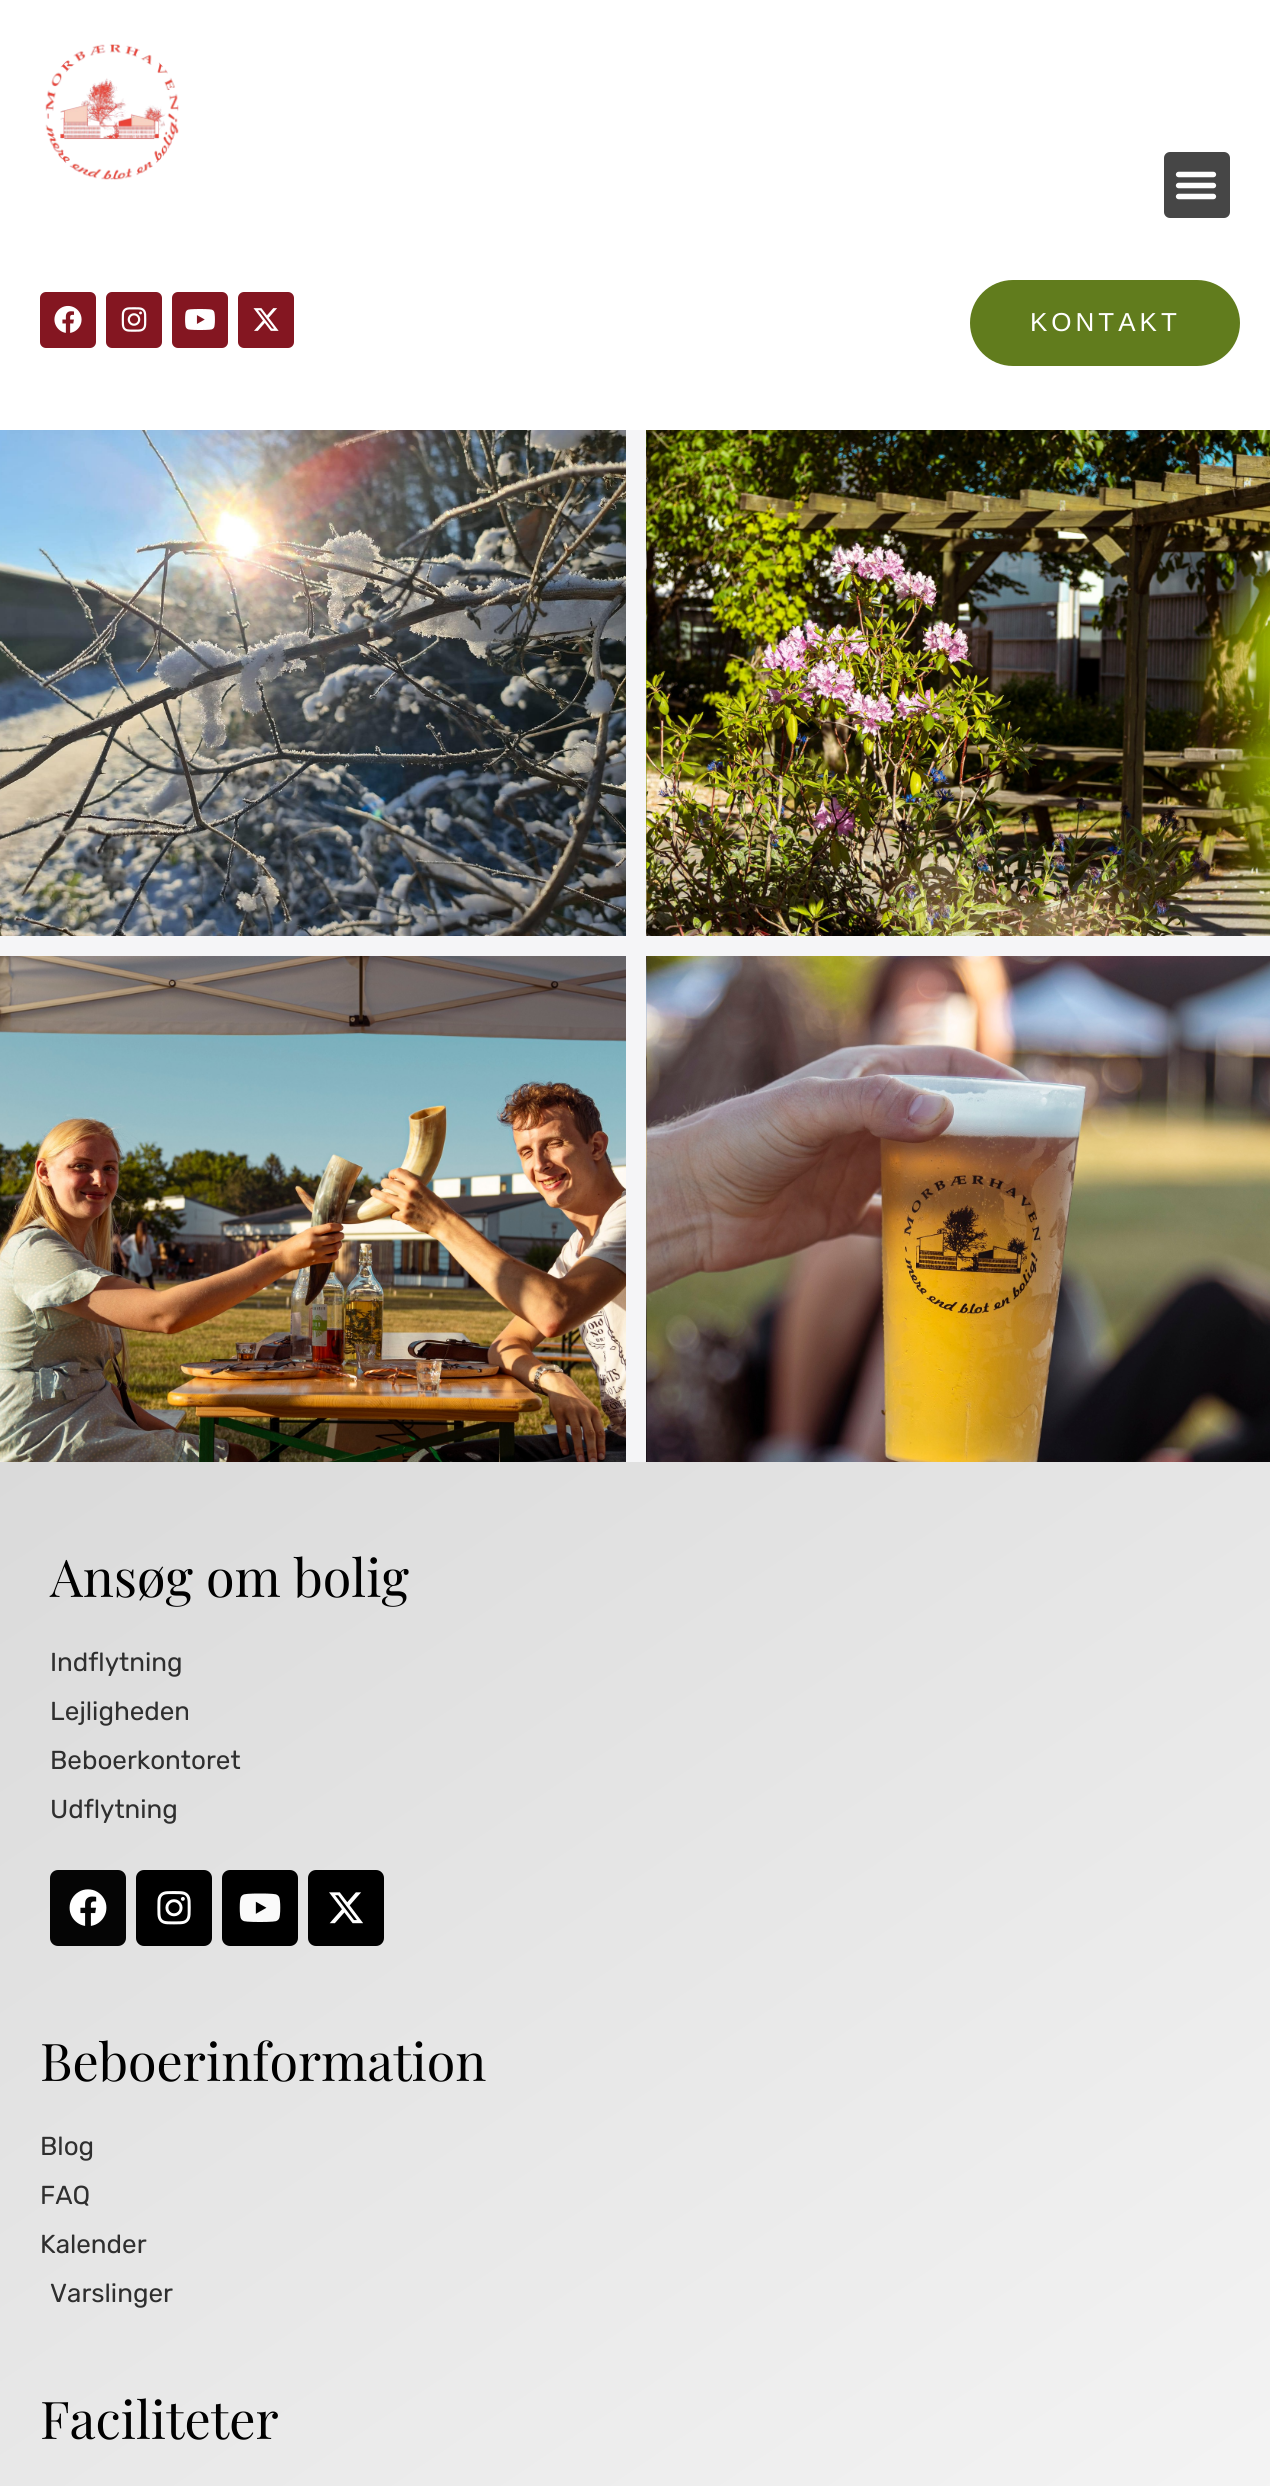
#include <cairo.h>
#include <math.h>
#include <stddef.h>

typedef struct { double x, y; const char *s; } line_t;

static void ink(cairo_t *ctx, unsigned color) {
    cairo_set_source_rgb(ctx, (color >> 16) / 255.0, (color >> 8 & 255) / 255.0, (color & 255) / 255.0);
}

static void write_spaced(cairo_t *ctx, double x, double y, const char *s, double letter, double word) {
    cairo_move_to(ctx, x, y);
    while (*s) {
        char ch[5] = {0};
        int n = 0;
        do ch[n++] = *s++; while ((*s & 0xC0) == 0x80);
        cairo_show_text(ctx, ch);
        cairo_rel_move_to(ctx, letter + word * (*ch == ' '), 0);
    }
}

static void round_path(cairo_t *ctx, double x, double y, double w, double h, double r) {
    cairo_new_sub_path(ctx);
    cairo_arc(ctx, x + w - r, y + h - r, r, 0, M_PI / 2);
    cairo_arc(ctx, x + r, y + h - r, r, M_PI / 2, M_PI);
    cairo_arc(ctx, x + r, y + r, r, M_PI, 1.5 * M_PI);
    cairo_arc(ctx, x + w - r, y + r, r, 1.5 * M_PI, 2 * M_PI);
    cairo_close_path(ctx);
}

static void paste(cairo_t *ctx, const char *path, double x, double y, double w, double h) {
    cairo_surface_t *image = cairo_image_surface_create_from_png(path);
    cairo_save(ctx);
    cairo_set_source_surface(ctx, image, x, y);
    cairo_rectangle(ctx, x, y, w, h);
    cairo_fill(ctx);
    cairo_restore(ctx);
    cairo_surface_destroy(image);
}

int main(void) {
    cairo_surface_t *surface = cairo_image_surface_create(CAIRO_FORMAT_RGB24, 1270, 2486);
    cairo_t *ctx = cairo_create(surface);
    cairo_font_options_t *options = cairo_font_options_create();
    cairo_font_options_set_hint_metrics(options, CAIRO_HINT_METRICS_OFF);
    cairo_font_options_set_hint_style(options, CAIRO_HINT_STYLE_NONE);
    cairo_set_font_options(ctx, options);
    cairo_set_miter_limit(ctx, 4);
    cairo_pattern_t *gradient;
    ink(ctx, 0xFFFFFF);
    cairo_paint(ctx);
    paste(ctx, "media/1.png", 45, 44, 134, 136);
    ink(ctx, 0x464646);
    round_path(ctx, 1164, 152, 66, 66, 6);
    cairo_fill(ctx);
    paste(ctx, "media/2.png", 1175, 171, 42, 29);
    ink(ctx, 0x841621);
    round_path(ctx, 40, 292, 56, 56, 6);
    cairo_fill(ctx);
    paste(ctx, "media/3.png", 54, 305, 28, 28);
    round_path(ctx, 106, 292, 56, 56, 6);
    cairo_fill(ctx);
    paste(ctx, "media/4.png", 121, 307, 26, 25);
    round_path(ctx, 172, 292, 56, 56, 6);
    cairo_fill(ctx);
    paste(ctx, "media/5.png", 185, 309, 30, 21);
    round_path(ctx, 238, 292, 56, 56, 6);
    cairo_fill(ctx);
    paste(ctx, "media/6.png", 253, 308, 26, 23);
    ink(ctx, 0x617C1D);
    round_path(ctx, 970, 280, 270, 86, 43);
    cairo_fill(ctx);
    cairo_select_font_face(ctx, "Liberation Sans", CAIRO_FONT_SLANT_NORMAL, CAIRO_FONT_WEIGHT_NORMAL);
    cairo_set_font_size(ctx, 26);
    ink(ctx, 0xFFFFFF);
    write_spaced(ctx, 1030, 331, "KONTAKT", 4, 0);
    ink(ctx, 0xF5F5F7);
    cairo_rectangle(ctx, 0, 430, 1270, 1032);
    cairo_fill(ctx);
    paste(ctx, "media/7.png", 0, 430, 626, 506);
    paste(ctx, "media/8.png", 646, 430, 624, 506);
    paste(ctx, "media/9.png", 0, 956, 626, 506);
    paste(ctx, "media/10.png", 646, 956, 624, 506);
    gradient = cairo_pattern_create_linear(3.4, 1460, 1267, 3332);
    cairo_pattern_add_color_stop_rgba(gradient, 0, 0.855, 0.855, 0.855, 1);
    cairo_pattern_add_color_stop_rgba(gradient, 1, 1, 1, 1, 1);
    cairo_set_source(ctx, gradient);
    cairo_pattern_destroy(gradient);
    cairo_rectangle(ctx, 0, 1462, 1270, 1024);
    cairo_fill(ctx);
    cairo_select_font_face(ctx, "Playfair Display", CAIRO_FONT_SLANT_NORMAL, CAIRO_FONT_WEIGHT_NORMAL);
    cairo_set_font_size(ctx, 52);
    ink(ctx, 0x000000);
    cairo_move_to(ctx, 50, 1597);
    cairo_show_text(ctx, "Ansøg om bolig");
    cairo_select_font_face(ctx, "Rubik", CAIRO_FONT_SLANT_NORMAL, CAIRO_FONT_WEIGHT_NORMAL);
    cairo_set_font_size(ctx, 26);
    ink(ctx, 0x2F2F2F);
    {
        static const line_t items[] = {
            {50, 1671, "Indflytning"},
            {50, 1720, "Lejligheden"},
            {50, 1769, "Beboerkontoret"},
            {50, 1818, "Udflytning"},
        };
        for (size_t i = 0; i < sizeof items / sizeof *items; i++) {
            cairo_move_to(ctx, items[i].x, items[i].y);
            cairo_show_text(ctx, items[i].s);
        }
    }
    ink(ctx, 0x050505);
    round_path(ctx, 50, 1870, 76, 76, 8);
    cairo_fill(ctx);
    paste(ctx, "media/11.png", 69, 1889, 38, 37);
    ink(ctx, 0x000000);
    round_path(ctx, 136, 1870, 76, 76, 8);
    cairo_fill(ctx);
    paste(ctx, "media/12.png", 157, 1891, 34, 34);
    round_path(ctx, 222, 1870, 76, 76, 8);
    cairo_fill(ctx);
    paste(ctx, "media/13.png", 239, 1893, 42, 29);
    round_path(ctx, 308, 1870, 76, 76, 8);
    cairo_fill(ctx);
    paste(ctx, "media/14.png", 329, 1892, 34, 32);
    cairo_select_font_face(ctx, "Playfair Display", CAIRO_FONT_SLANT_NORMAL, CAIRO_FONT_WEIGHT_NORMAL);
    cairo_set_font_size(ctx, 52);
    cairo_move_to(ctx, 40, 2081);
    cairo_show_text(ctx, "Beboerinformation");
    cairo_select_font_face(ctx, "Rubik", CAIRO_FONT_SLANT_NORMAL, CAIRO_FONT_WEIGHT_NORMAL);
    cairo_set_font_size(ctx, 26);
    ink(ctx, 0x2F2F2F);
    {
        static const line_t items[] = {
            {40, 2155, "Blog"},
            {40, 2204, "FAQ"},
            {40, 2253, "Kalender"},
            {50, 2302, "Varslinger"},
        };
        for (size_t i = 0; i < sizeof items / sizeof *items; i++) {
            cairo_move_to(ctx, items[i].x, items[i].y);
            cairo_show_text(ctx, items[i].s);
        }
    }
    cairo_select_font_face(ctx, "Playfair Display", CAIRO_FONT_SLANT_NORMAL, CAIRO_FONT_WEIGHT_NORMAL);
    cairo_set_font_size(ctx, 52);
    ink(ctx, 0x000000);
    cairo_move_to(ctx, 40, 2439);
    cairo_show_text(ctx, "Faciliteter");
    cairo_surface_write_to_png(surface, "image.png");
    cairo_font_options_destroy(options);
    cairo_destroy(ctx);
    cairo_surface_destroy(surface);
    return 0;
}
